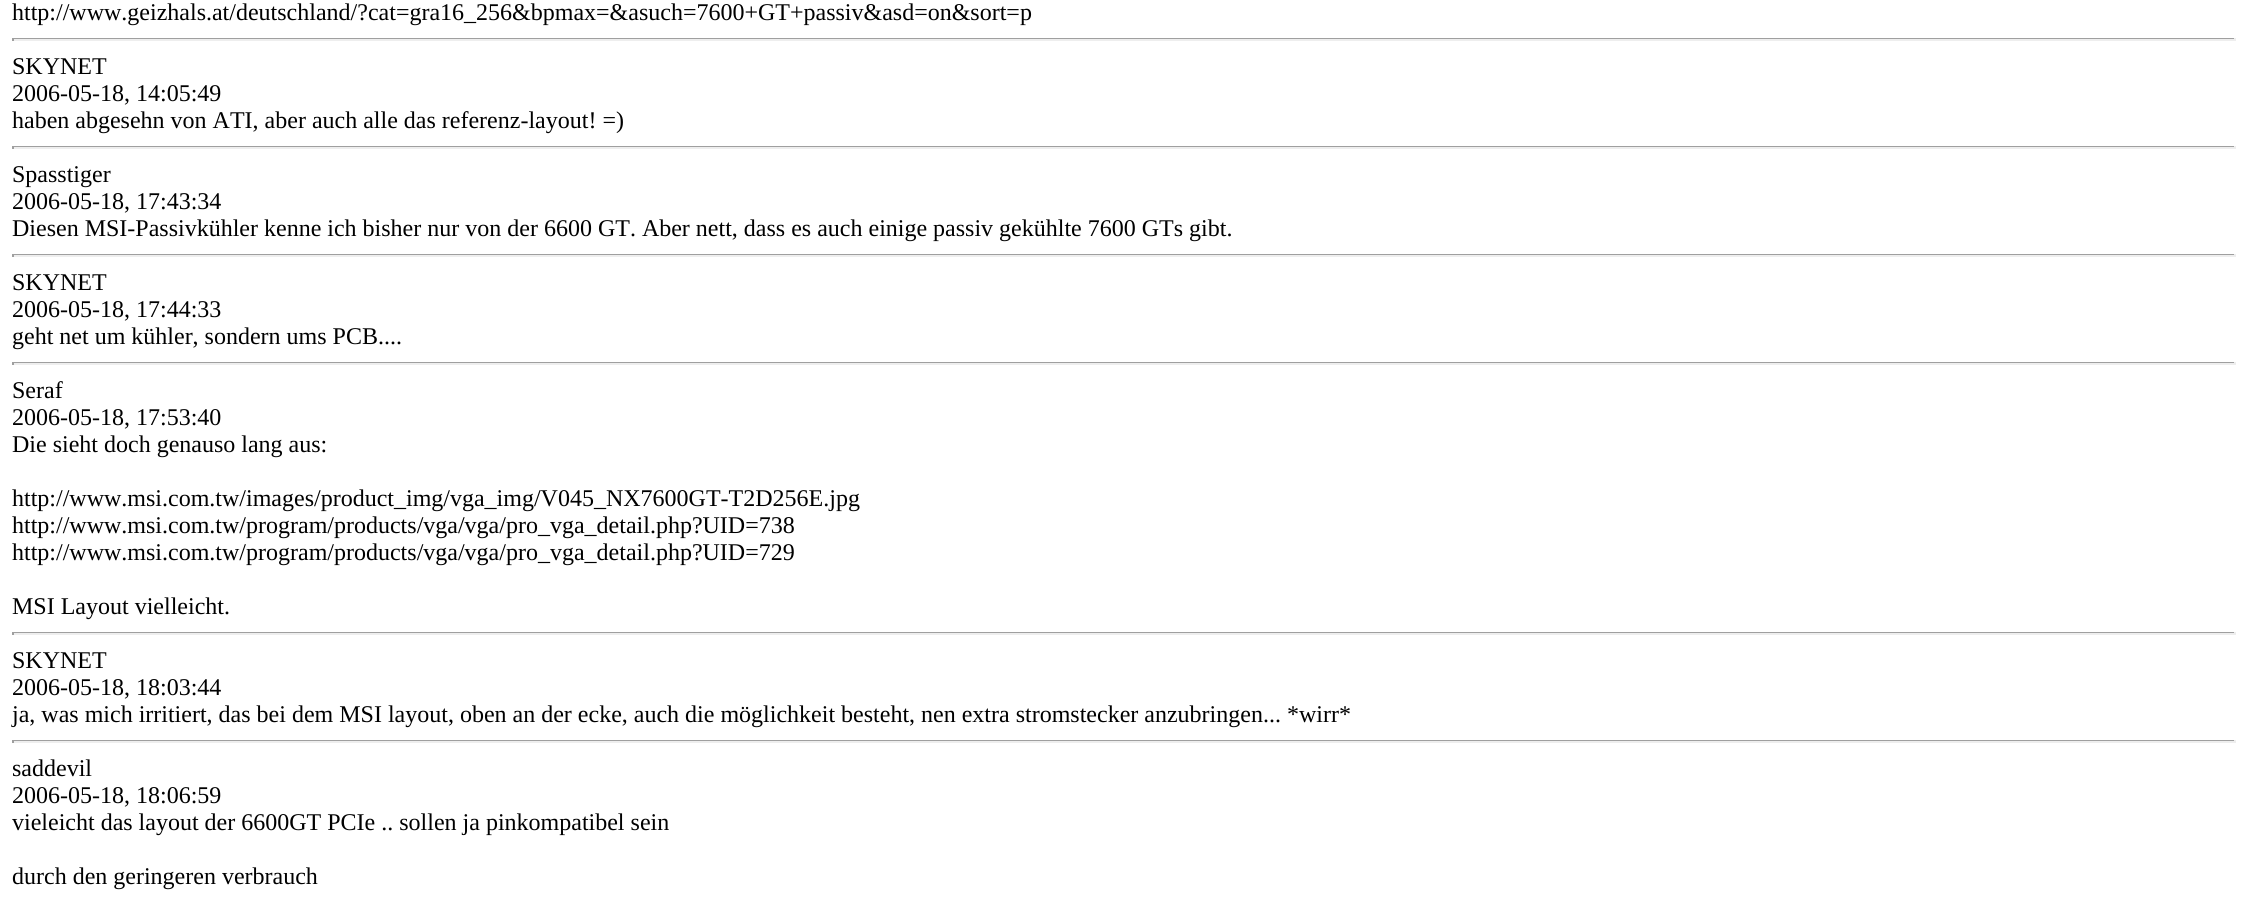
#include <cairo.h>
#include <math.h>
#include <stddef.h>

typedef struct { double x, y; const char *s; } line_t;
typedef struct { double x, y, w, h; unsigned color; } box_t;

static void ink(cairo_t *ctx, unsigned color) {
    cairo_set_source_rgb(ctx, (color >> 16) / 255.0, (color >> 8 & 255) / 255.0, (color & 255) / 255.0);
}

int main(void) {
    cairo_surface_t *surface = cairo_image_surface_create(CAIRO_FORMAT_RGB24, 2247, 921);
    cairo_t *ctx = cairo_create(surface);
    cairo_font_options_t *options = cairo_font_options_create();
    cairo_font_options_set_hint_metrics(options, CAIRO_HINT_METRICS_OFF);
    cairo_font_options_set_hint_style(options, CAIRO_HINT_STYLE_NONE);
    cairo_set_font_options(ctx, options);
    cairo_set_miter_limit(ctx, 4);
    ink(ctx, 0xFFFFFF);
    cairo_paint(ctx);
    cairo_select_font_face(ctx, "Liberation Serif", CAIRO_FONT_SLANT_NORMAL, CAIRO_FONT_WEIGHT_NORMAL);
    cairo_set_font_size(ctx, 24);
    ink(ctx, 0x000000);
    cairo_move_to(ctx, 12, 20);
    cairo_show_text(ctx, "http://www.geizhals.at/deutschland/?cat=gra16_256&bpmax=&asuch=7600+GT+passiv&asd=on&sort=p");
    {
        static const box_t items[] = {
            {12, 38, 2223, 1, 0x9F9F9F},
            {2234, 38, 2, 3, 0xEEEEEE},
            {12, 39, 2223, 2, 0xEEEEEE},
            {12, 38, 2, 3, 0x9F9F9F},
        };
        for (size_t i = 0; i < sizeof items / sizeof *items; i++) {
            ink(ctx, items[i].color);
            cairo_rectangle(ctx, items[i].x, items[i].y, items[i].w, items[i].h);
            cairo_fill(ctx);
        }
    }
    ink(ctx, 0x000000);
    {
        static const line_t items[] = {
            {12, 74, "SKYNET"},
            {12, 101, "2006-05-18, 14:05:49"},
            {12, 128, "haben abgesehn von ATI, aber auch alle das referenz-layout! =)"},
        };
        for (size_t i = 0; i < sizeof items / sizeof *items; i++) {
            cairo_move_to(ctx, items[i].x, items[i].y);
            cairo_show_text(ctx, items[i].s);
        }
    }
    {
        static const box_t items[] = {
            {12, 146, 2223, 1, 0x9F9F9F},
            {2234, 146, 2, 3, 0xEEEEEE},
            {12, 147, 2223, 2, 0xEEEEEE},
            {12, 146, 2, 3, 0x9F9F9F},
        };
        for (size_t i = 0; i < sizeof items / sizeof *items; i++) {
            ink(ctx, items[i].color);
            cairo_rectangle(ctx, items[i].x, items[i].y, items[i].w, items[i].h);
            cairo_fill(ctx);
        }
    }
    ink(ctx, 0x000000);
    {
        static const line_t items[] = {
            {12, 182, "Spasstiger"},
            {12, 209, "2006-05-18, 17:43:34"},
            {12, 236, "Diesen MSI-Passivkühler kenne ich bisher nur von der 6600 GT. Aber nett, dass es auch einige passiv gekühlte 7600 GTs gibt."},
        };
        for (size_t i = 0; i < sizeof items / sizeof *items; i++) {
            cairo_move_to(ctx, items[i].x, items[i].y);
            cairo_show_text(ctx, items[i].s);
        }
    }
    {
        static const box_t items[] = {
            {12, 254, 2223, 1, 0x9F9F9F},
            {2234, 254, 2, 3, 0xEEEEEE},
            {12, 255, 2223, 2, 0xEEEEEE},
            {12, 254, 2, 3, 0x9F9F9F},
        };
        for (size_t i = 0; i < sizeof items / sizeof *items; i++) {
            ink(ctx, items[i].color);
            cairo_rectangle(ctx, items[i].x, items[i].y, items[i].w, items[i].h);
            cairo_fill(ctx);
        }
    }
    ink(ctx, 0x000000);
    {
        static const line_t items[] = {
            {12, 290, "SKYNET"},
            {12, 317, "2006-05-18, 17:44:33"},
            {12, 344, "geht net um kühler, sondern ums PCB...."},
        };
        for (size_t i = 0; i < sizeof items / sizeof *items; i++) {
            cairo_move_to(ctx, items[i].x, items[i].y);
            cairo_show_text(ctx, items[i].s);
        }
    }
    {
        static const box_t items[] = {
            {12, 362, 2223, 1, 0x9F9F9F},
            {2234, 362, 2, 3, 0xEEEEEE},
            {12, 363, 2223, 2, 0xEEEEEE},
            {12, 362, 2, 3, 0x9F9F9F},
        };
        for (size_t i = 0; i < sizeof items / sizeof *items; i++) {
            ink(ctx, items[i].color);
            cairo_rectangle(ctx, items[i].x, items[i].y, items[i].w, items[i].h);
            cairo_fill(ctx);
        }
    }
    ink(ctx, 0x000000);
    {
        static const line_t items[] = {
            {12, 398, "Seraf"},
            {12, 425, "2006-05-18, 17:53:40"},
            {12, 452, "Die sieht doch genauso lang aus:"},
            {12, 506, "http://www.msi.com.tw/images/product_img/vga_img/V045_NX7600GT-T2D256E.jpg"},
            {12, 533, "http://www.msi.com.tw/program/products/vga/vga/pro_vga_detail.php?UID=738"},
            {12, 560, "http://www.msi.com.tw/program/products/vga/vga/pro_vga_detail.php?UID=729"},
            {12, 614, "MSI Layout vielleicht."},
        };
        for (size_t i = 0; i < sizeof items / sizeof *items; i++) {
            cairo_move_to(ctx, items[i].x, items[i].y);
            cairo_show_text(ctx, items[i].s);
        }
    }
    {
        static const box_t items[] = {
            {12, 632, 2223, 1, 0x9F9F9F},
            {2234, 632, 2, 3, 0xEEEEEE},
            {12, 633, 2223, 2, 0xEEEEEE},
            {12, 632, 2, 3, 0x9F9F9F},
        };
        for (size_t i = 0; i < sizeof items / sizeof *items; i++) {
            ink(ctx, items[i].color);
            cairo_rectangle(ctx, items[i].x, items[i].y, items[i].w, items[i].h);
            cairo_fill(ctx);
        }
    }
    ink(ctx, 0x000000);
    {
        static const line_t items[] = {
            {12, 668, "SKYNET"},
            {12, 695, "2006-05-18, 18:03:44"},
            {12, 722, "ja, was mich irritiert, das bei dem MSI layout, oben an der ecke, auch die möglichkeit besteht, nen extra stromstecker anzubringen... *wirr*"},
        };
        for (size_t i = 0; i < sizeof items / sizeof *items; i++) {
            cairo_move_to(ctx, items[i].x, items[i].y);
            cairo_show_text(ctx, items[i].s);
        }
    }
    {
        static const box_t items[] = {
            {12, 740, 2223, 1, 0x9F9F9F},
            {2234, 740, 2, 3, 0xEEEEEE},
            {12, 741, 2223, 2, 0xEEEEEE},
            {12, 740, 2, 3, 0x9F9F9F},
        };
        for (size_t i = 0; i < sizeof items / sizeof *items; i++) {
            ink(ctx, items[i].color);
            cairo_rectangle(ctx, items[i].x, items[i].y, items[i].w, items[i].h);
            cairo_fill(ctx);
        }
    }
    ink(ctx, 0x000000);
    {
        static const line_t items[] = {
            {12, 776, "saddevil"},
            {12, 803, "2006-05-18, 18:06:59"},
            {12, 830, "vieleicht das layout der 6600GT PCIe .. sollen ja pinkompatibel sein"},
            {12, 884, "durch den geringeren verbrauch"},
        };
        for (size_t i = 0; i < sizeof items / sizeof *items; i++) {
            cairo_move_to(ctx, items[i].x, items[i].y);
            cairo_show_text(ctx, items[i].s);
        }
    }
    cairo_surface_write_to_png(surface, "image.png");
    cairo_font_options_destroy(options);
    cairo_destroy(ctx);
    cairo_surface_destroy(surface);
    return 0;
}
